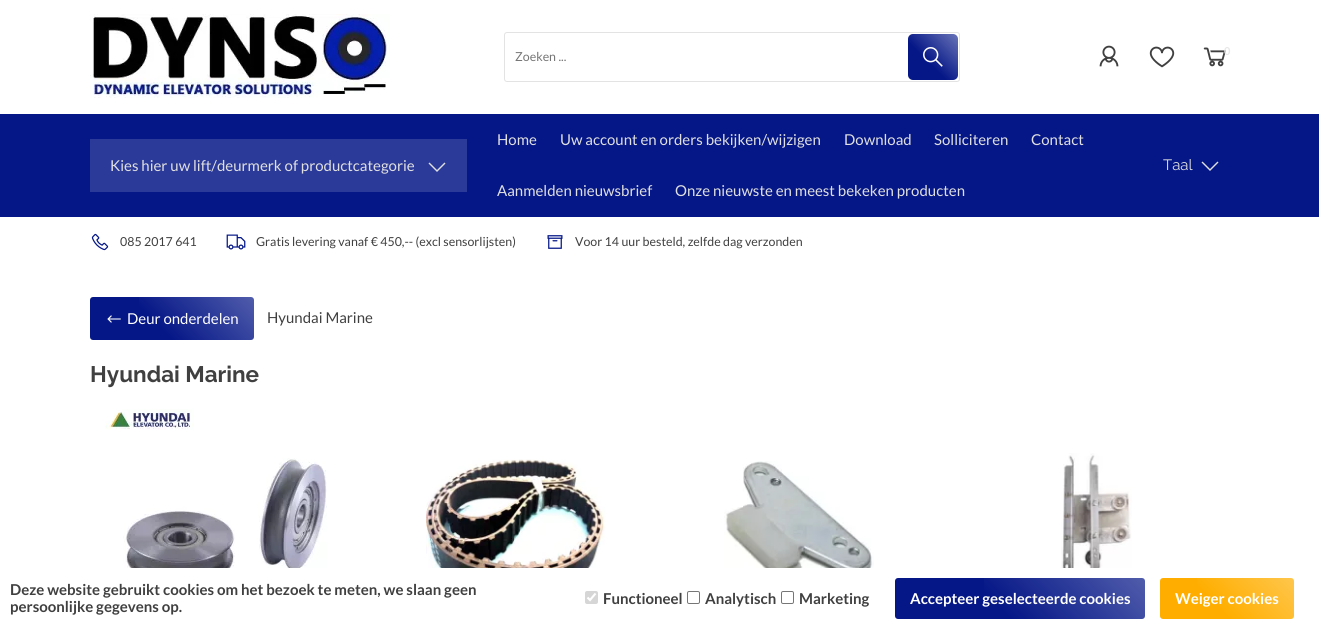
#include <cairo.h>
#include <math.h>
#include <stddef.h>

typedef struct { double x, y; const char *s; } line_t;

static void ink(cairo_t *ctx, unsigned color) {
    cairo_set_source_rgb(ctx, (color >> 16) / 255.0, (color >> 8 & 255) / 255.0, (color & 255) / 255.0);
}

static void round_path(cairo_t *ctx, double x, double y, double w, double h, double r) {
    cairo_new_sub_path(ctx);
    cairo_arc(ctx, x + w - r, y + h - r, r, 0, M_PI / 2);
    cairo_arc(ctx, x + r, y + h - r, r, M_PI / 2, M_PI);
    cairo_arc(ctx, x + r, y + r, r, M_PI, 1.5 * M_PI);
    cairo_arc(ctx, x + w - r, y + r, r, 1.5 * M_PI, 2 * M_PI);
    cairo_close_path(ctx);
}

static void paste(cairo_t *ctx, const char *path, double x, double y, double w, double h) {
    cairo_surface_t *image = cairo_image_surface_create_from_png(path);
    cairo_save(ctx);
    cairo_set_source_surface(ctx, image, x, y);
    cairo_rectangle(ctx, x, y, w, h);
    cairo_fill(ctx);
    cairo_restore(ctx);
    cairo_surface_destroy(image);
}

int main(void) {
    cairo_surface_t *surface = cairo_image_surface_create(CAIRO_FORMAT_RGB24, 1319, 629);
    cairo_t *ctx = cairo_create(surface);
    cairo_font_options_t *options = cairo_font_options_create();
    cairo_font_options_set_hint_metrics(options, CAIRO_HINT_METRICS_OFF);
    cairo_font_options_set_hint_style(options, CAIRO_HINT_STYLE_NONE);
    cairo_set_font_options(ctx, options);
    cairo_set_miter_limit(ctx, 4);
    cairo_pattern_t *gradient;
    ink(ctx, 0xFFFFFF);
    cairo_paint(ctx);
    paste(ctx, "media/1.png", 90, 14, 300, 84);
    round_path(ctx, 504.5, 32.5, 455, 49, 2.5);
    ink(ctx, 0xE3E3E3);
    cairo_set_line_width(ctx, 1);
    cairo_stroke(ctx);
    cairo_select_font_face(ctx, "Lato", CAIRO_FONT_SLANT_NORMAL, CAIRO_FONT_WEIGHT_NORMAL);
    cairo_set_font_size(ctx, 12.4);
    ink(ctx, 0x757575);
    cairo_move_to(ctx, 515, 61);
    cairo_show_text(ctx, "Zoeken ...");
    ink(ctx, 0x051787);
    round_path(ctx, 908, 34, 50, 46, 5);
    cairo_fill(ctx);
    gradient = cairo_pattern_create_linear(957, 33, 909, 81);
    cairo_pattern_add_color_stop_rgba(gradient, 0, 1, 1, 1, 0.4);
    cairo_pattern_add_color_stop_rgba(gradient, 0.6, 1, 1, 1, 0);
    cairo_set_source(ctx, gradient);
    cairo_pattern_destroy(gradient);
    cairo_rectangle(ctx, 908, 34, 50, 46);
    cairo_fill(ctx);
    paste(ctx, "media/2.png", 923, 47, 20, 20);
    paste(ctx, "media/3.png", 1099, 45, 20, 22);
    paste(ctx, "media/4.png", 1149, 46, 26, 22);
    paste(ctx, "media/5.png", 1203, 47, 23, 20);
    cairo_select_font_face(ctx, "Lato", CAIRO_FONT_SLANT_NORMAL, CAIRO_FONT_WEIGHT_BOLD);
    cairo_set_font_size(ctx, 11);
    ink(ctx, 0xE8E8E8);
    cairo_move_to(ctx, 1224, 55);
    cairo_show_text(ctx, "0");
    ink(ctx, 0x051787);
    cairo_rectangle(ctx, 0, 114, 1319, 103);
    cairo_fill(ctx);
    ink(ctx, 0x2B3A99);
    cairo_rectangle(ctx, 90, 139, 377, 53);
    cairo_fill(ctx);
    cairo_select_font_face(ctx, "Lato", CAIRO_FONT_SLANT_NORMAL, CAIRO_FONT_WEIGHT_NORMAL);
    cairo_set_font_size(ctx, 15);
    ink(ctx, 0xE0E0E0);
    cairo_move_to(ctx, 110, 171);
    cairo_show_text(ctx, "Kies hier uw lift/deurmerk of productcategorie");
    cairo_new_path(ctx);
    cairo_move_to(ctx, 429.5, 162.5);
    cairo_line_to(ctx, 428.5, 163.5);
    cairo_line_to(ctx, 437, 172);
    cairo_line_to(ctx, 445.5, 163.5);
    cairo_line_to(ctx, 444.5, 162.5);
    cairo_line_to(ctx, 437, 170);
    cairo_close_path(ctx);
    cairo_fill(ctx);
    {
        static const line_t items[] = {
            {497, 145, "Home"},
            {560, 145, "Uw account en orders bekijken/wijzigen"},
            {844, 145, "Download"},
            {934, 145, "Solliciteren"},
            {1031, 145, "Contact"},
            {497, 196, "Aanmelden nieuwsbrief"},
            {675, 196, "Onze nieuwste en meest bekeken producten"},
        };
        for (size_t i = 0; i < sizeof items / sizeof *items; i++) {
            cairo_move_to(ctx, items[i].x, items[i].y);
            cairo_show_text(ctx, items[i].s);
        }
    }
    cairo_select_font_face(ctx, "Raleway", CAIRO_FONT_SLANT_NORMAL, CAIRO_FONT_WEIGHT_NORMAL);
    cairo_move_to(ctx, 1163, 170);
    cairo_show_text(ctx, "Taal");
    cairo_new_path(ctx);
    cairo_move_to(ctx, 1202.5, 161.5);
    cairo_line_to(ctx, 1201.5, 162.5);
    cairo_line_to(ctx, 1210, 171);
    cairo_line_to(ctx, 1218.5, 162.5);
    cairo_line_to(ctx, 1217.5, 161.5);
    cairo_line_to(ctx, 1210, 169);
    cairo_close_path(ctx);
    cairo_fill(ctx);
    paste(ctx, "media/6.png", 91, 233, 18, 18);
    cairo_select_font_face(ctx, "Lato", CAIRO_FONT_SLANT_NORMAL, CAIRO_FONT_WEIGHT_NORMAL);
    cairo_set_font_size(ctx, 12.4);
    ink(ctx, 0x404040);
    cairo_move_to(ctx, 120, 246);
    cairo_show_text(ctx, "085 2017 641");
    paste(ctx, "media/7.png", 226, 234, 20, 16);
    cairo_move_to(ctx, 256, 246);
    cairo_show_text(ctx, "Gratis levering vanaf € 450,-- (excl sensorlijsten)");
    paste(ctx, "media/8.png", 547, 235, 16, 14);
    cairo_move_to(ctx, 575, 246);
    cairo_show_text(ctx, "Voor 14 uur besteld, zelfde dag verzonden");
    ink(ctx, 0x051787);
    round_path(ctx, 90, 297, 164, 43, 3);
    cairo_fill(ctx);
    gradient = cairo_pattern_create_linear(224, 267, 120, 370);
    cairo_pattern_add_color_stop_rgba(gradient, 0, 1, 1, 1, 0.3);
    cairo_pattern_add_color_stop_rgba(gradient, 0.6, 1, 1, 1, 0);
    cairo_set_source(ctx, gradient);
    cairo_pattern_destroy(gradient);
    cairo_rectangle(ctx, 139, 297, 115, 43);
    cairo_fill(ctx);
    paste(ctx, "media/9.png", 107, 315, 14, 8);
    cairo_set_font_size(ctx, 15);
    ink(ctx, 0xFFFFFF);
    cairo_move_to(ctx, 127, 324);
    cairo_show_text(ctx, "Deur onderdelen");
    ink(ctx, 0x404040);
    cairo_move_to(ctx, 267, 323);
    cairo_show_text(ctx, "Hyundai Marine");
    cairo_select_font_face(ctx, "Raleway", CAIRO_FONT_SLANT_NORMAL, CAIRO_FONT_WEIGHT_BOLD);
    cairo_set_font_size(ctx, 22.5);
    cairo_move_to(ctx, 90, 382);
    cairo_show_text(ctx, "Hyundai Marine");
    paste(ctx, "media/10.png", 105, 409, 89, 21);
    paste(ctx, "media/11.png", 123, 458, 204, 110);
    paste(ctx, "media/12.png", 426, 459, 179, 109);
    paste(ctx, "media/13.png", 724, 461, 150, 107);
    paste(ctx, "media/14.png", 1061, 453, 71, 115);
    cairo_select_font_face(ctx, "Lato", CAIRO_FONT_SLANT_NORMAL, CAIRO_FONT_WEIGHT_BOLD);
    cairo_set_font_size(ctx, 15);
    cairo_move_to(ctx, 10, 595);
    cairo_show_text(ctx, "Deze website gebruikt cookies om het bezoek te meten, we slaan geen");
    cairo_move_to(ctx, 10, 612);
    cairo_show_text(ctx, "persoonlijke gegevens op.");
    ink(ctx, 0xD6D6D6);
    round_path(ctx, 585, 591, 13, 13, 2);
    cairo_fill(ctx);
    cairo_new_path(ctx);
    cairo_move_to(ctx, 587.5, 597.5);
    cairo_line_to(ctx, 590, 600);
    cairo_line_to(ctx, 595.5, 593.5);
    ink(ctx, 0xFFFFFF);
    cairo_set_line_width(ctx, 2.1);
    cairo_stroke(ctx);
    ink(ctx, 0x404040);
    cairo_move_to(ctx, 603, 604);
    cairo_show_text(ctx, "Functioneel");
    round_path(ctx, 687.5, 591.5, 12, 12, 1.5);
    ink(ctx, 0x767676);
    cairo_set_line_width(ctx, 1);
    cairo_stroke(ctx);
    ink(ctx, 0x404040);
    cairo_move_to(ctx, 705, 604);
    cairo_show_text(ctx, "Analytisch");
    round_path(ctx, 781.5, 591.5, 12, 12, 1.5);
    ink(ctx, 0x767676);
    cairo_stroke(ctx);
    ink(ctx, 0x404040);
    cairo_move_to(ctx, 799, 604);
    cairo_show_text(ctx, "Marketing");
    ink(ctx, 0x051787);
    round_path(ctx, 895, 578, 250, 41, 3);
    cairo_fill(ctx);
    gradient = cairo_pattern_create_linear(1093, 526, 947, 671);
    cairo_pattern_add_color_stop_rgba(gradient, 0, 1, 1, 1, 0.3);
    cairo_pattern_add_color_stop_rgba(gradient, 0.6, 1, 1, 1, 0);
    cairo_set_source(ctx, gradient);
    cairo_pattern_destroy(gradient);
    cairo_rectangle(ctx, 984, 578, 161, 41);
    cairo_fill(ctx);
    ink(ctx, 0xFFFFFF);
    cairo_move_to(ctx, 910, 604);
    cairo_show_text(ctx, "Accepteer geselecteerde cookies");
    ink(ctx, 0xFFAE00);
    round_path(ctx, 1160, 578, 134, 41, 3);
    cairo_fill(ctx);
    gradient = cairo_pattern_create_linear(1271, 555, 1183, 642);
    cairo_pattern_add_color_stop_rgba(gradient, 0, 1, 1, 1, 0.3);
    cairo_pattern_add_color_stop_rgba(gradient, 0.6, 1, 1, 1, 0);
    cairo_set_source(ctx, gradient);
    cairo_pattern_destroy(gradient);
    cairo_rectangle(ctx, 1197, 578, 97, 41);
    cairo_fill(ctx);
    ink(ctx, 0xFFFFFF);
    cairo_move_to(ctx, 1175, 604);
    cairo_show_text(ctx, "Weiger cookies");
    cairo_surface_write_to_png(surface, "image.png");
    cairo_font_options_destroy(options);
    cairo_destroy(ctx);
    cairo_surface_destroy(surface);
    return 0;
}
